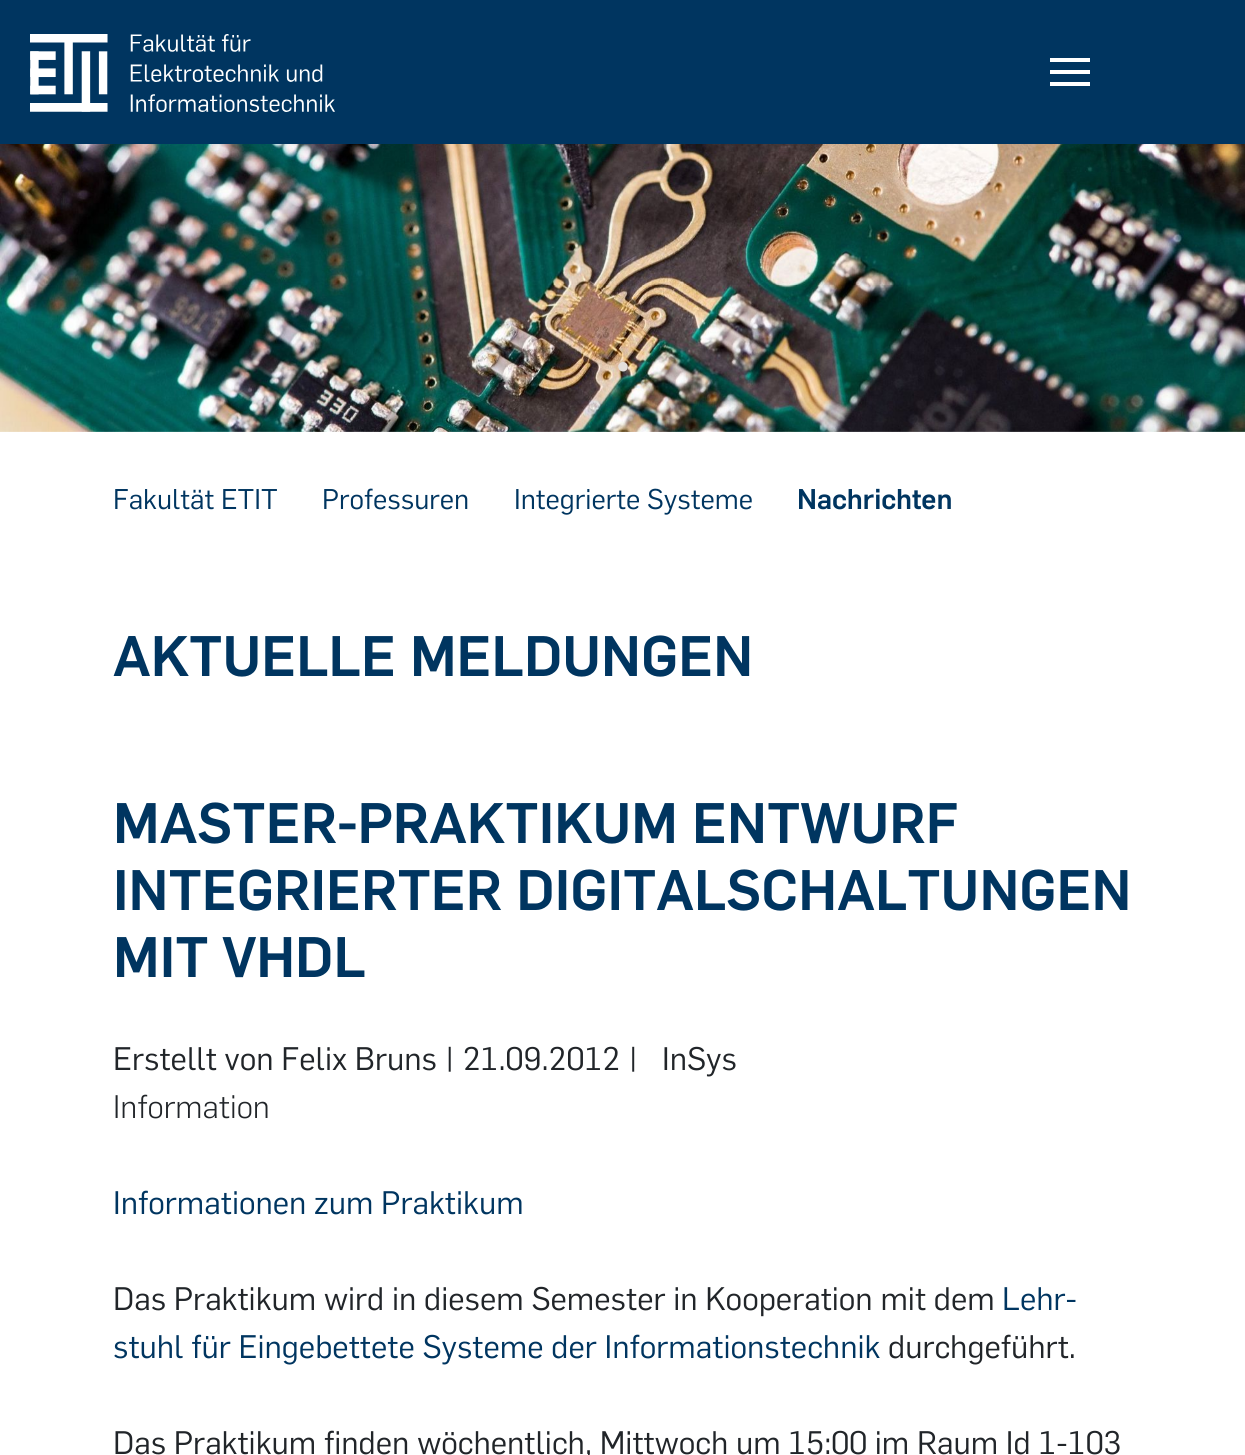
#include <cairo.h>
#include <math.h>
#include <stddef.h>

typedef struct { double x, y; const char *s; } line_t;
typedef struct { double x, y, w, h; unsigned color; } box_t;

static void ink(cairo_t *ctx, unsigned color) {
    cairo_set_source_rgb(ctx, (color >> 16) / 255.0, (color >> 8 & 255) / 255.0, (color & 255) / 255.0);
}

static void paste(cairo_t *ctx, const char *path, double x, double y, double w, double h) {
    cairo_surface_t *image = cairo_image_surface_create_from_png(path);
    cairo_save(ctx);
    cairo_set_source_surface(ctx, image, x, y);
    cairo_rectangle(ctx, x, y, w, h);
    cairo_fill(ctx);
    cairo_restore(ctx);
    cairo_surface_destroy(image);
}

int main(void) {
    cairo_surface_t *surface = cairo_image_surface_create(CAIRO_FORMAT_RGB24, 1245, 1455);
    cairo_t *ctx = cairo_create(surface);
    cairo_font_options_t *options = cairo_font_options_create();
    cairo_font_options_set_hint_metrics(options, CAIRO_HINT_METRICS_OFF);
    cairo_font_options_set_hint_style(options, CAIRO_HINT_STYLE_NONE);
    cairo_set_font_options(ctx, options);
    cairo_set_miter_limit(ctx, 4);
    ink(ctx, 0xFFFFFF);
    cairo_paint(ctx);
    ink(ctx, 0x003560);
    cairo_rectangle(ctx, 0, 0, 1245, 144);
    cairo_fill(ctx);
    paste(ctx, "media/1.png", 30, 34, 305, 78);
    {
        static const box_t items[] = {
            {1050, 58, 40, 4, 0xFFFFFF},
            {1050, 70, 40, 4, 0xFFFFFF},
            {1050, 82, 40, 4, 0xFFFFFF},
        };
        for (size_t i = 0; i < sizeof items / sizeof *items; i++) {
            ink(ctx, items[i].color);
            cairo_rectangle(ctx, items[i].x, items[i].y, items[i].w, items[i].h);
            cairo_fill(ctx);
        }
    }
    paste(ctx, "media/2.png", 0, 144, 1245, 288);
    cairo_select_font_face(ctx, "Liberation Serif", CAIRO_FONT_SLANT_NORMAL, CAIRO_FONT_WEIGHT_NORMAL);
    cairo_set_font_size(ctx, 40);
    ink(ctx, 0xE4DFDC);
    cairo_move_to(ctx, 616, 380);
    cairo_show_text(ctx, "•");
    cairo_select_font_face(ctx, "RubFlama", CAIRO_FONT_SLANT_NORMAL, CAIRO_FONT_WEIGHT_NORMAL);
    cairo_set_font_size(ctx, 28);
    ink(ctx, 0x003560);
    {
        static const line_t items[] = {
            {113, 509, "Fakultät ETIT"},
            {322, 509, "Professuren"},
            {514, 509, "Integrierte Systeme"},
        };
        for (size_t i = 0; i < sizeof items / sizeof *items; i++) {
            cairo_move_to(ctx, items[i].x, items[i].y);
            cairo_show_text(ctx, items[i].s);
        }
    }
    cairo_select_font_face(ctx, "RubFlama", CAIRO_FONT_SLANT_NORMAL, CAIRO_FONT_WEIGHT_BOLD);
    cairo_move_to(ctx, 797, 509);
    cairo_show_text(ctx, "Nachrichten");
    cairo_set_font_size(ctx, 56);
    {
        static const line_t items[] = {
            {113, 676, "AKTUELLE MELDUNGEN"},
            {113, 843, "MASTER-PRAKTIKUM ENTWURF"},
            {113, 910, "INTEGRIERTER DIGITALSCHALTUNGEN"},
            {113, 977, "MIT VHDL"},
        };
        for (size_t i = 0; i < sizeof items / sizeof *items; i++) {
            cairo_move_to(ctx, items[i].x, items[i].y);
            cairo_show_text(ctx, items[i].s);
        }
    }
    cairo_select_font_face(ctx, "RubFlama", CAIRO_FONT_SLANT_NORMAL, CAIRO_FONT_WEIGHT_NORMAL);
    cairo_set_font_size(ctx, 32);
    ink(ctx, 0x212529);
    cairo_move_to(ctx, 113, 1070);
    cairo_show_text(ctx, "Erstellt von Felix Bruns | 21.09.2012 |");
    cairo_move_to(ctx, 662, 1070);
    cairo_show_text(ctx, "InSys");
    cairo_select_font_face(ctx, "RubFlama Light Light", CAIRO_FONT_SLANT_NORMAL, CAIRO_FONT_WEIGHT_NORMAL);
    cairo_move_to(ctx, 113, 1118);
    cairo_show_text(ctx, "Information");
    cairo_select_font_face(ctx, "RubFlama", CAIRO_FONT_SLANT_NORMAL, CAIRO_FONT_WEIGHT_NORMAL);
    ink(ctx, 0x003560);
    cairo_move_to(ctx, 113, 1214);
    cairo_show_text(ctx, "Informationen zum Praktikum");
    ink(ctx, 0x212529);
    cairo_move_to(ctx, 113, 1310);
    cairo_show_text(ctx, "Das Praktikum wird in diesem Semester in Kooperation mit dem");
    ink(ctx, 0x003560);
    cairo_move_to(ctx, 1002, 1310);
    cairo_show_text(ctx, "Lehr-");
    cairo_move_to(ctx, 113, 1358);
    cairo_show_text(ctx, "stuhl für Eingebettete Systeme der Informationstechnik");
    ink(ctx, 0x212529);
    cairo_move_to(ctx, 888, 1358);
    cairo_show_text(ctx, "durchgeführt.");
    cairo_move_to(ctx, 113, 1454);
    cairo_show_text(ctx, "Das Praktikum finden wöchentlich, Mittwoch um 15:00 im Raum Id 1-103");
    cairo_surface_write_to_png(surface, "image.png");
    cairo_font_options_destroy(options);
    cairo_destroy(ctx);
    cairo_surface_destroy(surface);
    return 0;
}
